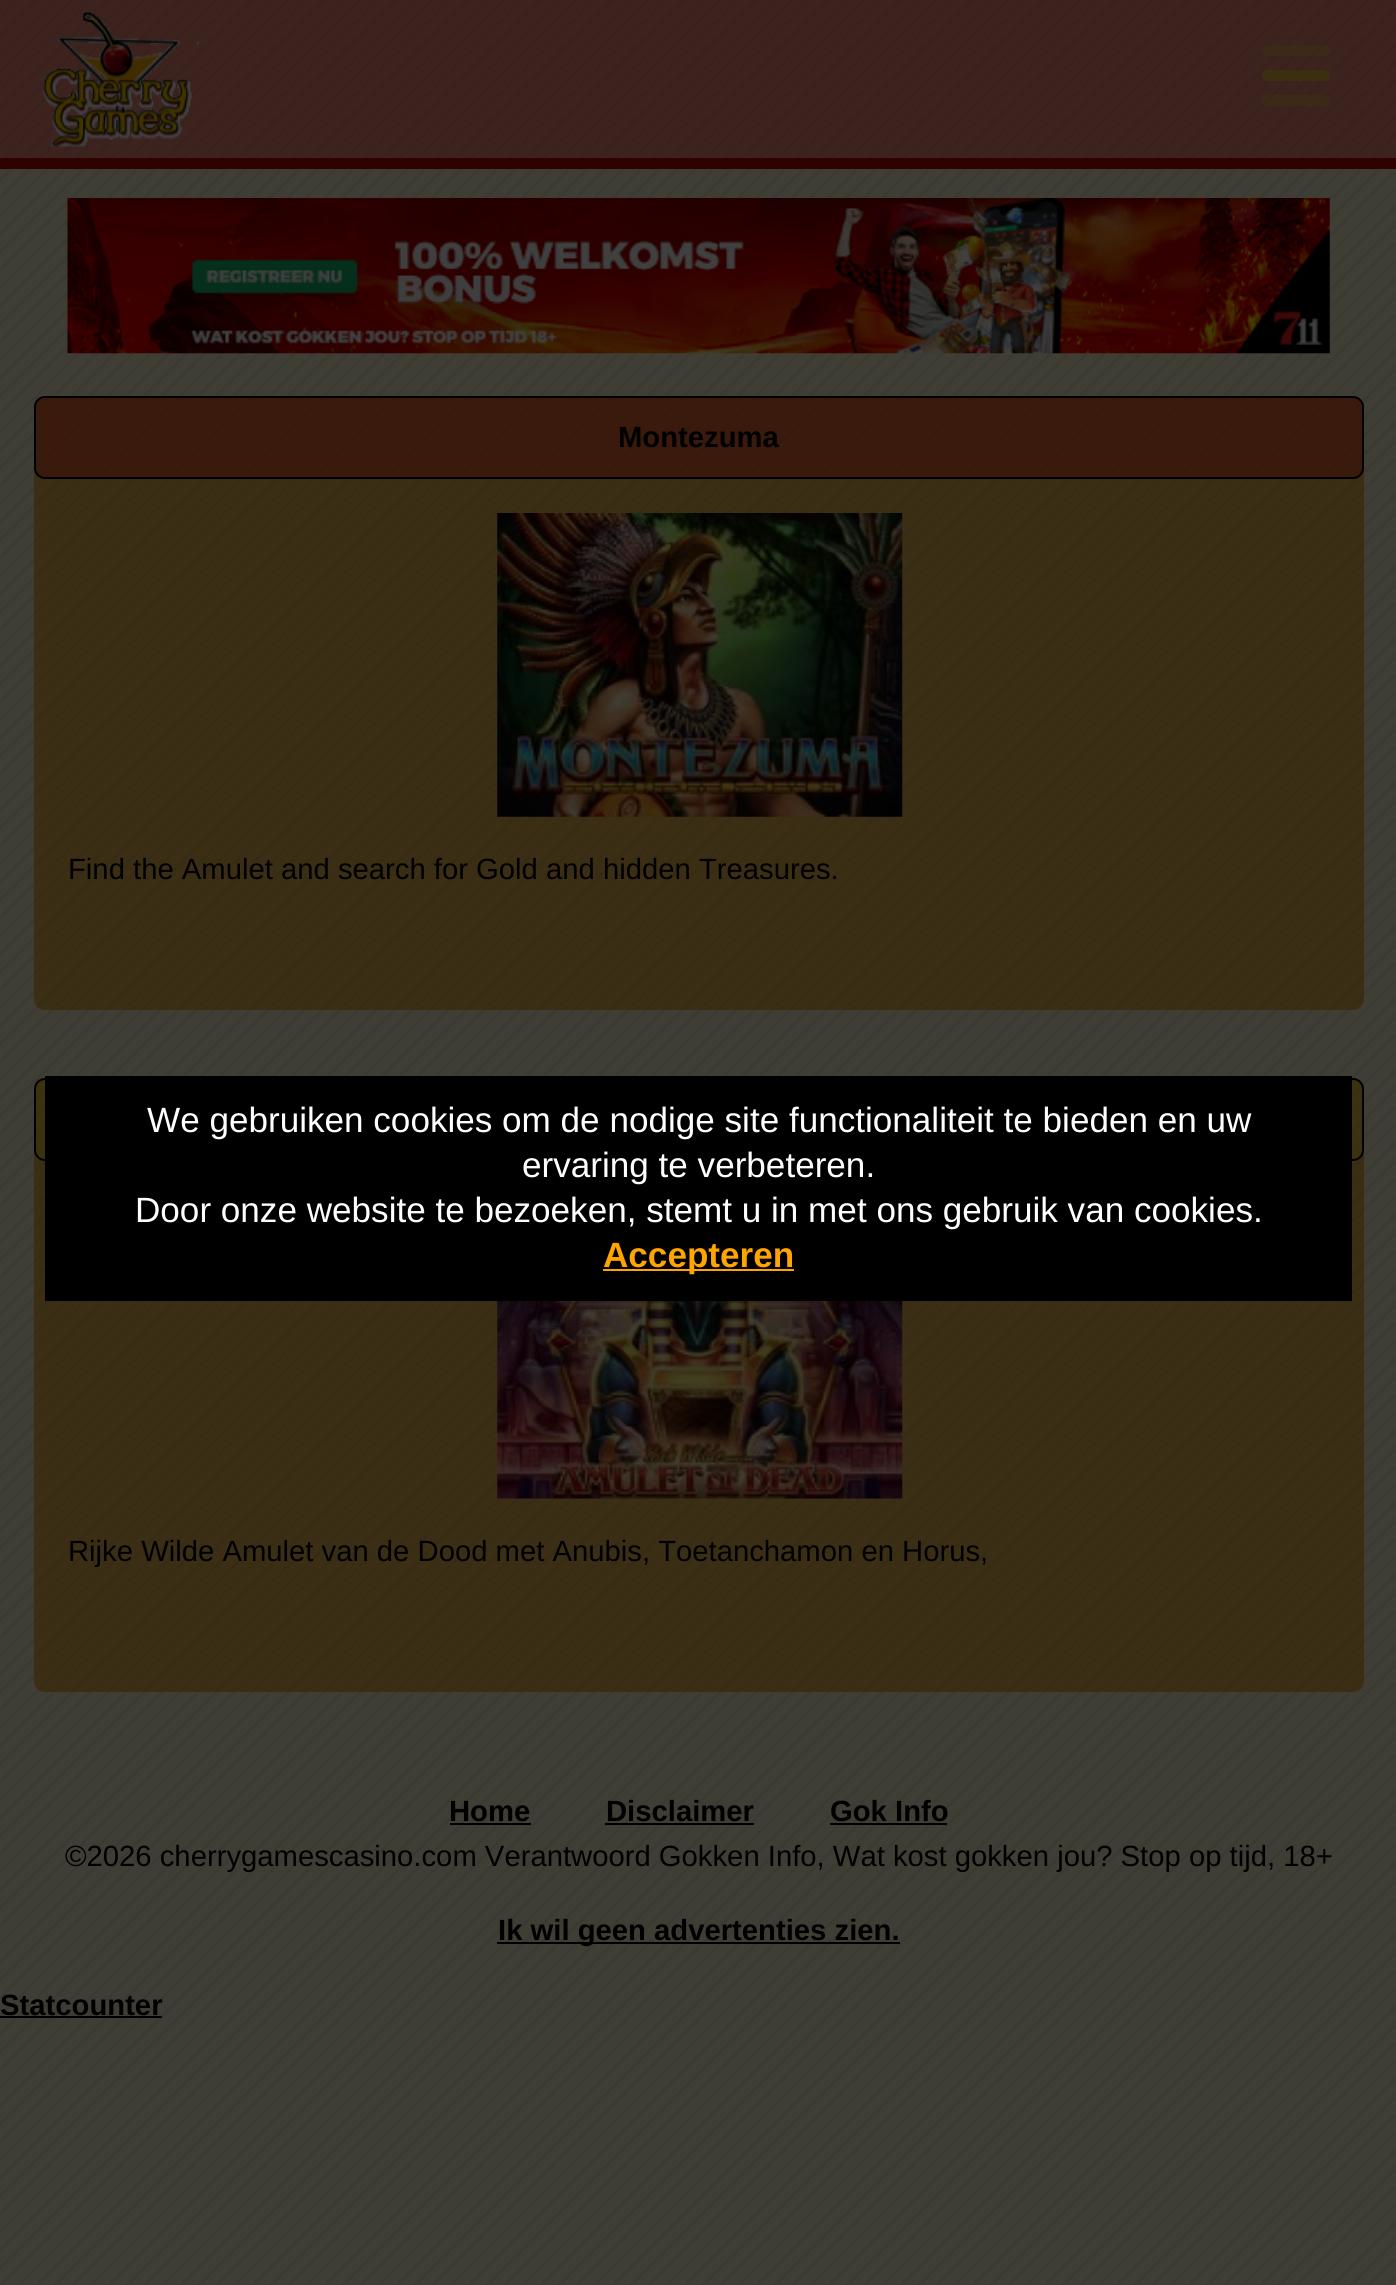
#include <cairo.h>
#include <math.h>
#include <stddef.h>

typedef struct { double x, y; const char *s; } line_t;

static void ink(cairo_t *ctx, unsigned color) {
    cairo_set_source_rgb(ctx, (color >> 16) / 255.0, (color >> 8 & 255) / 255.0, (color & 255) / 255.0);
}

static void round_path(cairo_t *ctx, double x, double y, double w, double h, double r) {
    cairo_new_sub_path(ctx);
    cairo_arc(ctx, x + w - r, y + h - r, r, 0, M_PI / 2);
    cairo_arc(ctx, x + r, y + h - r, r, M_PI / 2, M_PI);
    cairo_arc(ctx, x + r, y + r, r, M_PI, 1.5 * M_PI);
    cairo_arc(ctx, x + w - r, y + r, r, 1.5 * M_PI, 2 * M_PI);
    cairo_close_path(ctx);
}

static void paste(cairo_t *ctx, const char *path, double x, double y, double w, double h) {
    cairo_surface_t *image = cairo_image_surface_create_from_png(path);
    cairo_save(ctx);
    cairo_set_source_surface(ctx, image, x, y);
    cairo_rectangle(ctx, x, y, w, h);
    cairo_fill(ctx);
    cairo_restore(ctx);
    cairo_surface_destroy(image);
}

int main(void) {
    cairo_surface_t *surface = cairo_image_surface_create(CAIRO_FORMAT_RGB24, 1396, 2285);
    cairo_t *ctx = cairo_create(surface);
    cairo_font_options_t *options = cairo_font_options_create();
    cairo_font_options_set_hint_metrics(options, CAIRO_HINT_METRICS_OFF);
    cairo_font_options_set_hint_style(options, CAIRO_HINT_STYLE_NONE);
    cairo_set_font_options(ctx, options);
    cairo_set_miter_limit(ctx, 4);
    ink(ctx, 0xFFFFFF);
    cairo_paint(ctx);
    paste(ctx, "media/1.png", 0, 0, 1396, 2285);
    ink(ctx, 0x2F0101);
    cairo_rectangle(ctx, 0, 158, 1396, 11);
    cairo_fill(ctx);
    cairo_set_source_rgba(ctx, 0.22, 0, 0, 0.43);
    cairo_rectangle(ctx, 0, 0, 1396, 158);
    cairo_fill(ctx);
    paste(ctx, "media/2.png", 43, 12, 156, 135);
    cairo_set_source_rgba(ctx, 0.235, 0.235, 0.035, 0.31);
    round_path(ctx, 1262, 45, 68, 11, 5.5);
    cairo_fill(ctx);
    round_path(ctx, 1262, 70, 68, 11, 5.5);
    cairo_fill(ctx);
    round_path(ctx, 1262, 70, 68, 11, 5.5);
    cairo_fill(ctx);
    round_path(ctx, 1262, 95, 68, 11, 5.5);
    cairo_fill(ctx);
    paste(ctx, "media/3.png", 67, 198, 1263, 156);
    cairo_set_source_rgba(ctx, 0.216, 0.141, 0, 0.6);
    round_path(ctx, 34, 396, 1330, 614, 11);
    cairo_fill(ctx);
    cairo_set_source_rgba(ctx, 0.22, 0, 0, 0.43);
    round_path(ctx, 35, 397, 1328, 81, 10);
    cairo_fill_preserve(ctx);
    ink(ctx, 0x000000);
    cairo_stroke(ctx);
    cairo_select_font_face(ctx, "Liberation Sans", CAIRO_FONT_SLANT_NORMAL, CAIRO_FONT_WEIGHT_BOLD);
    cairo_set_font_size(ctx, 29.25);
    cairo_move_to(ctx, 618, 447);
    cairo_show_text(ctx, "Montezuma");
    paste(ctx, "media/4.png", 497, 513, 406, 304);
    cairo_select_font_face(ctx, "Liberation Sans", CAIRO_FONT_SLANT_NORMAL, CAIRO_FONT_WEIGHT_NORMAL);
    cairo_move_to(ctx, 68, 879);
    cairo_show_text(ctx, "Find the Amulet and search for Gold and hidden Treasures.");
    cairo_set_source_rgba(ctx, 0.216, 0.141, 0, 0.6);
    round_path(ctx, 34, 1078, 1330, 614, 11);
    cairo_fill(ctx);
    cairo_set_source_rgba(ctx, 0.235, 0.235, 0.035, 0.31);
    round_path(ctx, 35, 1079, 1328, 81, 10);
    cairo_fill_preserve(ctx);
    ink(ctx, 0x000000);
    cairo_stroke(ctx);
    paste(ctx, "media/5.png", 497, 1301, 406, 198);
    cairo_move_to(ctx, 68, 1561);
    cairo_show_text(ctx, "Rijke Wilde Amulet van de Dood met Anubis, Toetanchamon en Horus,");
    cairo_select_font_face(ctx, "Liberation Sans", CAIRO_FONT_SLANT_NORMAL, CAIRO_FONT_WEIGHT_BOLD);
    cairo_move_to(ctx, 449, 1821);
    cairo_show_text(ctx, "Home");
    cairo_rectangle(ctx, 450, 1823, 81, 2);
    cairo_fill(ctx);
    cairo_move_to(ctx, 606, 1821);
    cairo_show_text(ctx, "Disclaimer");
    cairo_rectangle(ctx, 605, 1823, 149, 2);
    cairo_fill(ctx);
    cairo_move_to(ctx, 830, 1821);
    cairo_show_text(ctx, "Gok Info");
    cairo_rectangle(ctx, 830, 1823, 117, 2);
    cairo_fill(ctx);
    cairo_select_font_face(ctx, "Liberation Sans", CAIRO_FONT_SLANT_NORMAL, CAIRO_FONT_WEIGHT_NORMAL);
    cairo_move_to(ctx, 65, 1866);
    cairo_show_text(ctx, "©2026 cherrygamescasino.com Verantwoord Gokken Info, Wat kost gokken jou? Stop op tijd, 18+");
    cairo_rectangle(ctx, 497, 1942, 403, 2);
    cairo_fill(ctx);
    cairo_select_font_face(ctx, "Liberation Sans", CAIRO_FONT_SLANT_NORMAL, CAIRO_FONT_WEIGHT_BOLD);
    cairo_move_to(ctx, 498, 1940);
    cairo_show_text(ctx, "Ik wil geen advertenties zien.");
    cairo_move_to(ctx, 0, 2015);
    cairo_show_text(ctx, "Statcounter");
    cairo_rectangle(ctx, 0, 2016, 162, 2);
    cairo_fill(ctx);
    cairo_rectangle(ctx, 45, 1076, 1307, 225);
    cairo_fill(ctx);
    cairo_select_font_face(ctx, "Liberation Sans", CAIRO_FONT_SLANT_NORMAL, CAIRO_FONT_WEIGHT_NORMAL);
    cairo_set_font_size(ctx, 35.1);
    ink(ctx, 0xFFFFFF);
    {
        static const line_t items[] = {
            {147, 1132, "We gebruiken cookies om de nodige site functionaliteit te bieden en uw"},
            {522, 1177, "ervaring te verbeteren."},
            {135, 1222, "Door onze website te bezoeken, stemt u in met ons gebruik van cookies."},
        };
        for (size_t i = 0; i < sizeof items / sizeof *items; i++) {
            cairo_move_to(ctx, items[i].x, items[i].y);
            cairo_show_text(ctx, items[i].s);
        }
    }
    ink(ctx, 0xFFA500);
    cairo_rectangle(ctx, 603, 1269, 191, 2);
    cairo_fill(ctx);
    cairo_select_font_face(ctx, "Liberation Sans", CAIRO_FONT_SLANT_NORMAL, CAIRO_FONT_WEIGHT_BOLD);
    cairo_move_to(ctx, 603, 1267);
    cairo_show_text(ctx, "Accepteren");
    cairo_surface_write_to_png(surface, "image.png");
    cairo_font_options_destroy(options);
    cairo_destroy(ctx);
    cairo_surface_destroy(surface);
    return 0;
}
